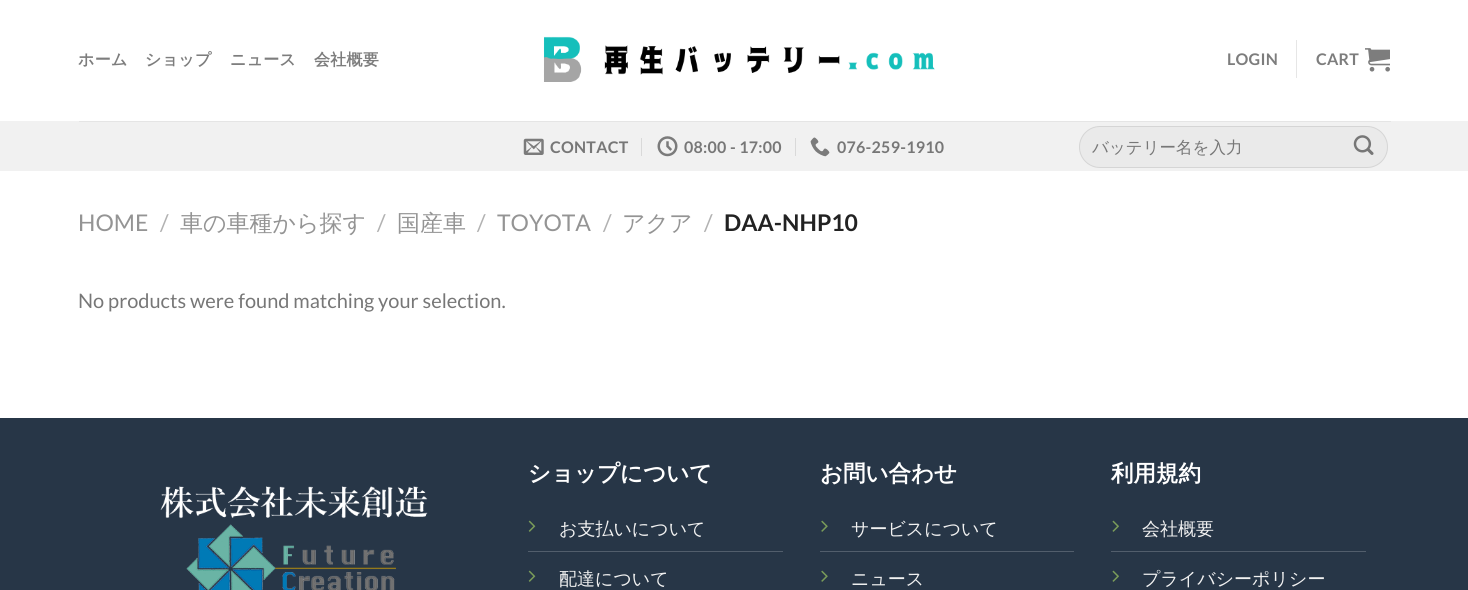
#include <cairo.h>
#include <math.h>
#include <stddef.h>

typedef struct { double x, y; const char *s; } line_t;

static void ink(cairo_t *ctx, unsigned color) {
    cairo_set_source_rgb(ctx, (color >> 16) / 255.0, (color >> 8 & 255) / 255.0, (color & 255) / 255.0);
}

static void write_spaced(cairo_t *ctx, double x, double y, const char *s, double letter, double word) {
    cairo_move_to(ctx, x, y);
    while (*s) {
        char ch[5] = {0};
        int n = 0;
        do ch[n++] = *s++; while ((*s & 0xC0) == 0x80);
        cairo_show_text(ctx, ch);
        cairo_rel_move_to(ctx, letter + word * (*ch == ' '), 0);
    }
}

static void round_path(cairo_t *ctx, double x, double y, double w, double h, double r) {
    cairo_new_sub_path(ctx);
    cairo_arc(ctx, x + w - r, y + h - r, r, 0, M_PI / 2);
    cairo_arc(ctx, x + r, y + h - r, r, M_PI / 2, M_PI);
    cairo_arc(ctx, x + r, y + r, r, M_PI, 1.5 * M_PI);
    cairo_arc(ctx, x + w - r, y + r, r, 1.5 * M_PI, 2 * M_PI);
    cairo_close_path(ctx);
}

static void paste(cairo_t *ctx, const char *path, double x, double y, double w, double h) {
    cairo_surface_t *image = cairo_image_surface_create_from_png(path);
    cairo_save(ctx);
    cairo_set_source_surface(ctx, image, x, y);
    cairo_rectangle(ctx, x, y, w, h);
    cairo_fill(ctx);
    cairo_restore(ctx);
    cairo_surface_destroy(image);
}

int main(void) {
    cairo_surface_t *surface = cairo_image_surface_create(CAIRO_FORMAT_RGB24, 1468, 590);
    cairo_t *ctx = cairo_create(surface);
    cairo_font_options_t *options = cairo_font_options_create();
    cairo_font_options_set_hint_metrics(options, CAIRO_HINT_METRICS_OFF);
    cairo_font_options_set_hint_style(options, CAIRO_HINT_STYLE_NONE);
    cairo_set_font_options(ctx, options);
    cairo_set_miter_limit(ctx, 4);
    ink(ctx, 0xFFFFFF);
    cairo_paint(ctx);
    cairo_select_font_face(ctx, "WenQuanYi Zen Hei", CAIRO_FONT_SLANT_NORMAL, CAIRO_FONT_WEIGHT_BOLD);
    cairo_set_font_size(ctx, 16);
    ink(ctx, 0x7D7D7D);
    {
        static const line_t items[] = {
            {78, 65, "ホーム"},
            {145, 65, "ショップ"},
            {230, 65, "ニュース"},
            {314, 65, "会社概要"},
        };
        for (size_t i = 0; i < sizeof items / sizeof *items; i++) {
            write_spaced(ctx, items[i].x, items[i].y, items[i].s, 0.25, 0);
        }
    }
    paste(ctx, "media/1.png", 543, 36, 392, 46);
    cairo_select_font_face(ctx, "Lato", CAIRO_FONT_SLANT_NORMAL, CAIRO_FONT_WEIGHT_BOLD);
    write_spaced(ctx, 1227, 65, "LOGIN", 0.25, 0);
    ink(ctx, 0xE6E6E6);
    cairo_rectangle(ctx, 1296, 40, 1, 38);
    cairo_fill(ctx);
    ink(ctx, 0x7D7D7D);
    write_spaced(ctx, 1316, 65, "CART", 0.25, 0);
    paste(ctx, "media/2.png", 1365, 48, 25, 24);
    ink(ctx, 0xF1F1F1);
    cairo_rectangle(ctx, 0, 121, 1468, 50);
    cairo_fill(ctx);
    ink(ctx, 0xE5E5E5);
    cairo_rectangle(ctx, 79, 121, 1312, 1);
    cairo_fill(ctx);
    paste(ctx, "media/3.png", 523, 138, 21, 17);
    ink(ctx, 0x777777);
    write_spaced(ctx, 550, 153, "CONTACT", 0.25, 0);
    ink(ctx, 0xD9D9D9);
    cairo_rectangle(ctx, 641, 138, 1, 18);
    cairo_fill(ctx);
    paste(ctx, "media/4.png", 657, 136, 21, 21);
    ink(ctx, 0x777777);
    write_spaced(ctx, 684, 153, "08:00 - 17:00", 0.25, 0);
    ink(ctx, 0xD9D9D9);
    cairo_rectangle(ctx, 795, 138, 1, 18);
    cairo_fill(ctx);
    paste(ctx, "media/5.png", 810, 137, 20, 20);
    ink(ctx, 0x777777);
    write_spaced(ctx, 837, 153, "076-259-1910", 0.25, 0);
    ink(ctx, 0xEAEAEA);
    round_path(ctx, 1079, 126, 309, 42, 21);
    cairo_fill(ctx);
    round_path(ctx, 1079.5, 126.5, 308, 41, 20.5);
    cairo_set_source_rgba(ctx, 0, 0, 0, 0.09);
    cairo_set_line_width(ctx, 1);
    cairo_stroke(ctx);
    cairo_select_font_face(ctx, "WenQuanYi Zen Hei Medium", CAIRO_FONT_SLANT_NORMAL, CAIRO_FONT_WEIGHT_NORMAL);
    cairo_set_font_size(ctx, 16.5);
    ink(ctx, 0x777777);
    cairo_move_to(ctx, 1092, 153);
    cairo_show_text(ctx, "バッテリー名を入力");
    paste(ctx, "media/6.png", 1353, 135, 21, 20);
    cairo_select_font_face(ctx, "Lato", CAIRO_FONT_SLANT_NORMAL, CAIRO_FONT_WEIGHT_NORMAL);
    cairo_set_font_size(ctx, 23);
    ink(ctx, 0x949494);
    cairo_move_to(ctx, 78, 231);
    cairo_show_text(ctx, "HOME");
    ink(ctx, 0xB2B2B2);
    cairo_move_to(ctx, 160, 231);
    cairo_show_text(ctx, "/");
    cairo_select_font_face(ctx, "WenQuanYi Zen Hei Medium", CAIRO_FONT_SLANT_NORMAL, CAIRO_FONT_WEIGHT_NORMAL);
    ink(ctx, 0x949494);
    cairo_move_to(ctx, 180, 231);
    cairo_show_text(ctx, "車の車種から探す");
    cairo_select_font_face(ctx, "Lato", CAIRO_FONT_SLANT_NORMAL, CAIRO_FONT_WEIGHT_NORMAL);
    ink(ctx, 0xB2B2B2);
    cairo_move_to(ctx, 377, 231);
    cairo_show_text(ctx, "/");
    cairo_select_font_face(ctx, "WenQuanYi Zen Hei Medium", CAIRO_FONT_SLANT_NORMAL, CAIRO_FONT_WEIGHT_NORMAL);
    ink(ctx, 0x949494);
    cairo_move_to(ctx, 397, 231);
    cairo_show_text(ctx, "国産車");
    cairo_select_font_face(ctx, "Lato", CAIRO_FONT_SLANT_NORMAL, CAIRO_FONT_WEIGHT_NORMAL);
    ink(ctx, 0xB2B2B2);
    cairo_move_to(ctx, 477, 231);
    cairo_show_text(ctx, "/");
    ink(ctx, 0x949494);
    cairo_move_to(ctx, 497, 231);
    cairo_show_text(ctx, "TOYOTA");
    ink(ctx, 0xB2B2B2);
    cairo_move_to(ctx, 603, 231);
    cairo_show_text(ctx, "/");
    cairo_select_font_face(ctx, "WenQuanYi Zen Hei Medium", CAIRO_FONT_SLANT_NORMAL, CAIRO_FONT_WEIGHT_NORMAL);
    ink(ctx, 0x949494);
    cairo_move_to(ctx, 622, 231);
    cairo_show_text(ctx, "アクア");
    cairo_select_font_face(ctx, "Lato", CAIRO_FONT_SLANT_NORMAL, CAIRO_FONT_WEIGHT_NORMAL);
    ink(ctx, 0xB2B2B2);
    cairo_move_to(ctx, 704, 231);
    cairo_show_text(ctx, "/");
    cairo_select_font_face(ctx, "Lato", CAIRO_FONT_SLANT_NORMAL, CAIRO_FONT_WEIGHT_BOLD);
    ink(ctx, 0x222222);
    cairo_move_to(ctx, 724, 231);
    cairo_show_text(ctx, "DAA-NHP10");
    cairo_select_font_face(ctx, "Lato", CAIRO_FONT_SLANT_NORMAL, CAIRO_FONT_WEIGHT_NORMAL);
    cairo_set_font_size(ctx, 20);
    ink(ctx, 0x777777);
    cairo_move_to(ctx, 78, 308);
    cairo_show_text(ctx, "No products were found matching your selection.");
    ink(ctx, 0x273647);
    cairo_rectangle(ctx, 0, 418, 1468, 172);
    cairo_fill(ctx);
    paste(ctx, "media/7.png", 160, 486, 268, 104);
    cairo_select_font_face(ctx, "WenQuanYi Zen Hei", CAIRO_FONT_SLANT_NORMAL, CAIRO_FONT_WEIGHT_BOLD);
    cairo_set_font_size(ctx, 22.5);
    ink(ctx, 0xFFFFFF);
    cairo_move_to(ctx, 528, 481);
    cairo_show_text(ctx, "ショップについて");
    ink(ctx, 0x525E6C);
    cairo_rectangle(ctx, 528, 551, 255, 1);
    cairo_fill(ctx);
    paste(ctx, "media/8.png", 528, 520, 8, 12);
    cairo_select_font_face(ctx, "WenQuanYi Zen Hei Medium", CAIRO_FONT_SLANT_NORMAL, CAIRO_FONT_WEIGHT_NORMAL);
    cairo_set_font_size(ctx, 18);
    ink(ctx, 0xF1F1F1);
    cairo_move_to(ctx, 559, 535);
    cairo_show_text(ctx, "お支払いについて");
    paste(ctx, "media/8.png", 528, 570, 8, 12);
    cairo_move_to(ctx, 559, 585);
    cairo_show_text(ctx, "配達について");
    cairo_select_font_face(ctx, "WenQuanYi Zen Hei", CAIRO_FONT_SLANT_NORMAL, CAIRO_FONT_WEIGHT_BOLD);
    cairo_set_font_size(ctx, 22.5);
    ink(ctx, 0xFFFFFF);
    cairo_move_to(ctx, 820, 481);
    cairo_show_text(ctx, "お問い合わせ");
    ink(ctx, 0x525E6C);
    cairo_rectangle(ctx, 820, 551, 254, 1);
    cairo_fill(ctx);
    paste(ctx, "media/9.png", 821, 520, 7, 12);
    cairo_select_font_face(ctx, "WenQuanYi Zen Hei Medium", CAIRO_FONT_SLANT_NORMAL, CAIRO_FONT_WEIGHT_NORMAL);
    cairo_set_font_size(ctx, 18);
    ink(ctx, 0xF1F1F1);
    cairo_move_to(ctx, 851, 535);
    cairo_show_text(ctx, "サービスについて");
    paste(ctx, "media/9.png", 821, 570, 7, 12);
    cairo_move_to(ctx, 851, 585);
    cairo_show_text(ctx, "ニュース");
    cairo_select_font_face(ctx, "WenQuanYi Zen Hei", CAIRO_FONT_SLANT_NORMAL, CAIRO_FONT_WEIGHT_BOLD);
    cairo_set_font_size(ctx, 22.5);
    ink(ctx, 0xFFFFFF);
    cairo_move_to(ctx, 1111, 481);
    cairo_show_text(ctx, "利用規約");
    ink(ctx, 0x525E6C);
    cairo_rectangle(ctx, 1111, 551, 255, 1);
    cairo_fill(ctx);
    paste(ctx, "media/10.png", 1112, 520, 7, 12);
    cairo_select_font_face(ctx, "WenQuanYi Zen Hei Medium", CAIRO_FONT_SLANT_NORMAL, CAIRO_FONT_WEIGHT_NORMAL);
    cairo_set_font_size(ctx, 18);
    ink(ctx, 0xF1F1F1);
    cairo_move_to(ctx, 1142, 535);
    cairo_show_text(ctx, "会社概要");
    paste(ctx, "media/10.png", 1112, 570, 7, 12);
    cairo_move_to(ctx, 1142, 585);
    cairo_show_text(ctx, "プライバシーポリシー");
    cairo_surface_write_to_png(surface, "image.png");
    cairo_font_options_destroy(options);
    cairo_destroy(ctx);
    cairo_surface_destroy(surface);
    return 0;
}
